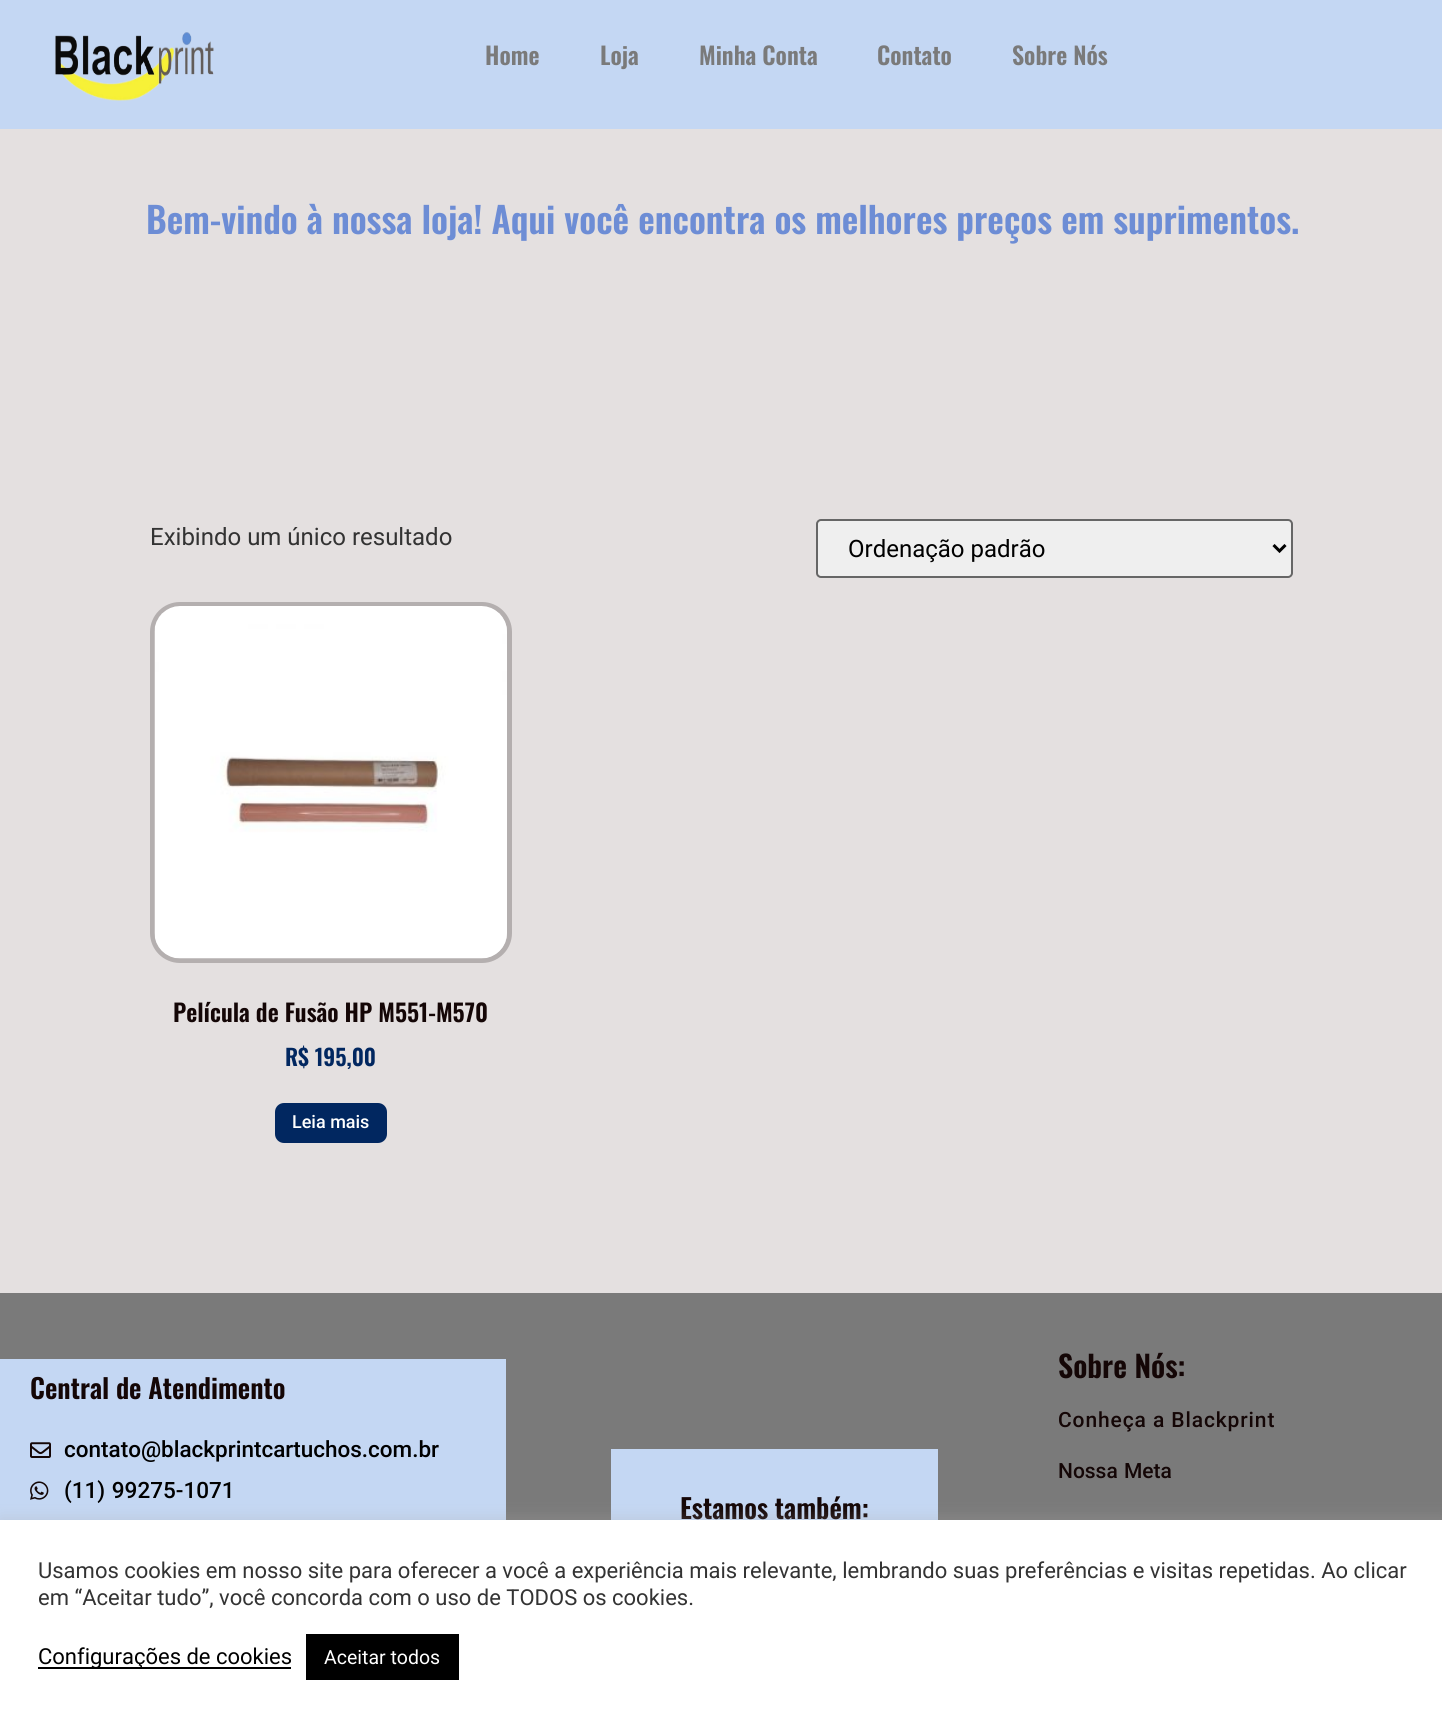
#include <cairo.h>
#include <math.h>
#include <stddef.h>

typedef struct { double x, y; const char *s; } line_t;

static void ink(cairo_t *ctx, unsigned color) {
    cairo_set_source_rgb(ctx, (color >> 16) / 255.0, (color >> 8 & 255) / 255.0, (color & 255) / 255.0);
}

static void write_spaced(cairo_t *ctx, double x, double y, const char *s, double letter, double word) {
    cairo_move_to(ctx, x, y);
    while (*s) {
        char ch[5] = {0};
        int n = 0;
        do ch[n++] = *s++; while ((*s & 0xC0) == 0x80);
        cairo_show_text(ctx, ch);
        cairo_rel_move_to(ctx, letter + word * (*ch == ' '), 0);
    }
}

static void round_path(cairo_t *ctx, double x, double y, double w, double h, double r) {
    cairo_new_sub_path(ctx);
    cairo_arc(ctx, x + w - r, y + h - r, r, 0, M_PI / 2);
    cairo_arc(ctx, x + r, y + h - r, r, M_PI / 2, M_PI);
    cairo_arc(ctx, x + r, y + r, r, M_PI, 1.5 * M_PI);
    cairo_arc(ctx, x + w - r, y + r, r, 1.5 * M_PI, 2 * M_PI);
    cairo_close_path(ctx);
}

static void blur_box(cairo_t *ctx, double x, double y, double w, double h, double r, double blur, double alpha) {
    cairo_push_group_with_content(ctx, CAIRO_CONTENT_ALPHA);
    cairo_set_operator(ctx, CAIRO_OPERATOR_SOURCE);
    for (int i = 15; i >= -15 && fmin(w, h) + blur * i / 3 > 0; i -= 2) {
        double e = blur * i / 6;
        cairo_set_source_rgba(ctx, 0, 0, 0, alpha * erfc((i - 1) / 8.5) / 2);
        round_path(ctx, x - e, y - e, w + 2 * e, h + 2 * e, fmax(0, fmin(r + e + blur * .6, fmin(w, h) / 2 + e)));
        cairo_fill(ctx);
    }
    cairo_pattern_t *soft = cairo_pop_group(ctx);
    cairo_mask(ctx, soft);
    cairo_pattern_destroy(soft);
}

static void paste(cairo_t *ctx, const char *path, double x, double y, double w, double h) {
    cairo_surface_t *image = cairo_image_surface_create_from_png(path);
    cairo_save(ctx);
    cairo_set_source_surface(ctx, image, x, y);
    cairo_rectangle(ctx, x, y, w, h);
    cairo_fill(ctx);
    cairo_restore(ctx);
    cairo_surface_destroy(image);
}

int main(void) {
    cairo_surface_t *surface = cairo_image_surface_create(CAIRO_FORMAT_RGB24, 1442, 1725);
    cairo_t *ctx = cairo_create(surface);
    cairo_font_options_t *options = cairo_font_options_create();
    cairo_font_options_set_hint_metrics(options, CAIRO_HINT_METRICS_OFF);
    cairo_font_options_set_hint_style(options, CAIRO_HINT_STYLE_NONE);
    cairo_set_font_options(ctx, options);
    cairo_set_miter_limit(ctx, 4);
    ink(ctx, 0xC4D7F3);
    cairo_paint(ctx);
    paste(ctx, "media/1.png", 55, 32, 159, 69);
    cairo_select_font_face(ctx, "Oswald SemiBold", CAIRO_FONT_SLANT_NORMAL, CAIRO_FONT_WEIGHT_NORMAL);
    cairo_set_font_size(ctx, 24);
    ink(ctx, 0x7A7A7A);
    {
        static const line_t items[] = {
            {485, 65, "Home"},
            {600, 65, "Loja"},
            {699, 65, "Minha Conta"},
            {877, 65, "Contato"},
            {1012, 65, "Sobre Nós"},
        };
        for (size_t i = 0; i < sizeof items / sizeof *items; i++) {
            cairo_move_to(ctx, items[i].x, items[i].y);
            cairo_show_text(ctx, items[i].s);
        }
    }
    ink(ctx, 0xE4E0E0);
    cairo_rectangle(ctx, 0, 129, 1442, 1164);
    cairo_fill(ctx);
    cairo_set_font_size(ctx, 36);
    ink(ctx, 0x6D8DD5);
    cairo_move_to(ctx, 146, 234);
    cairo_show_text(ctx, "Bem-vindo à nossa loja! Aqui você encontra os melhores preços em suprimentos.");
    cairo_select_font_face(ctx, "Roboto", CAIRO_FONT_SLANT_NORMAL, CAIRO_FONT_WEIGHT_NORMAL);
    cairo_set_font_size(ctx, 24);
    ink(ctx, 0x333333);
    cairo_move_to(ctx, 150, 545);
    cairo_show_text(ctx, "Exibindo um único resultado");
    ink(ctx, 0xEFEFEF);
    round_path(ctx, 817, 520, 475, 57, 4);
    cairo_fill_preserve(ctx);
    ink(ctx, 0x666666);
    cairo_stroke(ctx);
    cairo_new_path(ctx);
    cairo_move_to(ctx, 1273.5, 545);
    cairo_line_to(ctx, 1279.5, 551);
    cairo_line_to(ctx, 1285.5, 545);
    ink(ctx, 0x000000);
    cairo_set_line_width(ctx, 3);
    cairo_stroke(ctx);
    cairo_move_to(ctx, 848, 557);
    cairo_show_text(ctx, "Ordenação padrão");
    round_path(ctx, 152.5, 604.5, 357, 356, 27.5);
    ink(ctx, 0xB4AFAF);
    cairo_set_line_width(ctx, 5);
    cairo_stroke(ctx);
    paste(ctx, "media/2.png", 154, 606, 353, 353);
    cairo_select_font_face(ctx, "Oswald SemiBold", CAIRO_FONT_SLANT_NORMAL, CAIRO_FONT_WEIGHT_NORMAL);
    ink(ctx, 0x140606);
    cairo_move_to(ctx, 173, 1022);
    cairo_show_text(ctx, "Película de Fusão HP M551-M570");
    cairo_set_font_size(ctx, 22.5);
    ink(ctx, 0x012760);
    cairo_move_to(ctx, 285, 1066);
    cairo_show_text(ctx, "R$ 195,00");
    round_path(ctx, 275, 1103, 112, 40, 9);
    cairo_fill(ctx);
    cairo_select_font_face(ctx, "Roboto Medium", CAIRO_FONT_SLANT_NORMAL, CAIRO_FONT_WEIGHT_NORMAL);
    cairo_set_font_size(ctx, 18);
    ink(ctx, 0xFFFFFF);
    cairo_move_to(ctx, 292, 1128);
    cairo_show_text(ctx, "Leia mais");
    ink(ctx, 0x7A7A7A);
    cairo_rectangle(ctx, 0, 1293, 1442, 227);
    cairo_fill(ctx);
    ink(ctx, 0xC4D7F3);
    cairo_rectangle(ctx, 0, 1359, 506, 161);
    cairo_fill(ctx);
    cairo_select_font_face(ctx, "Oswald SemiBold", CAIRO_FONT_SLANT_NORMAL, CAIRO_FONT_WEIGHT_NORMAL);
    cairo_set_font_size(ctx, 27);
    ink(ctx, 0x140606);
    cairo_move_to(ctx, 30, 1399);
    cairo_show_text(ctx, "Central de Atendimento");
    paste(ctx, "media/3.png", 30, 1442, 21, 16);
    cairo_select_font_face(ctx, "Roboto Medium", CAIRO_FONT_SLANT_NORMAL, CAIRO_FONT_WEIGHT_NORMAL);
    cairo_set_font_size(ctx, 22.5);
    ink(ctx, 0x000000);
    cairo_move_to(ctx, 64, 1457);
    cairo_show_text(ctx, "contato@blackprintcartuchos.com.br");
    paste(ctx, "media/4.png", 30, 1481, 19, 19);
    write_spaced(ctx, 64, 1498, "(11) 99275-1071", 0, 1);
    cairo_select_font_face(ctx, "Oswald SemiBold", CAIRO_FONT_SLANT_NORMAL, CAIRO_FONT_WEIGHT_NORMAL);
    cairo_set_font_size(ctx, 30);
    ink(ctx, 0x140606);
    cairo_move_to(ctx, 1058, 1378);
    cairo_show_text(ctx, "Sobre Nós:");
    cairo_select_font_face(ctx, "Roboto Medium", CAIRO_FONT_SLANT_NORMAL, CAIRO_FONT_WEIGHT_NORMAL);
    cairo_set_font_size(ctx, 21);
    write_spaced(ctx, 1058, 1427, "Conheça a Blackprint", 0.9, 0);
    write_spaced(ctx, 1058, 1478, "Nossa Meta", 0, 1);
    ink(ctx, 0xC4D7F3);
    cairo_rectangle(ctx, 611, 1449, 327, 71);
    cairo_fill(ctx);
    cairo_select_font_face(ctx, "Oswald SemiBold", CAIRO_FONT_SLANT_NORMAL, CAIRO_FONT_WEIGHT_NORMAL);
    cairo_set_font_size(ctx, 27);
    ink(ctx, 0x140606);
    cairo_move_to(ctx, 680, 1519);
    cairo_show_text(ctx, "Estamos também:");
    ink(ctx, 0xACABAB);
    blur_box(ctx, 0, 1518, 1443, 206, 0, 7.5, 0.3);
    ink(ctx, 0xFFFFFF);
    cairo_rectangle(ctx, 0, 1520, 1442, 205);
    cairo_fill(ctx);
    cairo_select_font_face(ctx, "Roboto", CAIRO_FONT_SLANT_NORMAL, CAIRO_FONT_WEIGHT_NORMAL);
    cairo_set_font_size(ctx, 22);
    ink(ctx, 0x333333);
    cairo_move_to(ctx, 38, 1578);
    cairo_show_text(ctx, "Usamos cookies em nosso site para oferecer a você a experiência mais relevante, lembrando suas preferências e visitas repetidas. Ao clicar");
    cairo_move_to(ctx, 38, 1605);
    cairo_show_text(ctx, "em “Aceitar tudo”, você concorda com o uso de TODOS os cookies.");
    ink(ctx, 0x000000);
    cairo_rectangle(ctx, 38, 1667, 253, 2);
    cairo_fill(ctx);
    cairo_move_to(ctx, 38, 1664);
    cairo_show_text(ctx, "Configurações de cookies");
    cairo_rectangle(ctx, 306, 1634, 153, 46);
    cairo_fill(ctx);
    cairo_set_font_size(ctx, 19.5);
    ink(ctx, 0xFFFFFF);
    cairo_move_to(ctx, 324, 1664);
    cairo_show_text(ctx, "Aceitar todos");
    cairo_surface_write_to_png(surface, "image.png");
    cairo_font_options_destroy(options);
    cairo_destroy(ctx);
    cairo_surface_destroy(surface);
    return 0;
}
